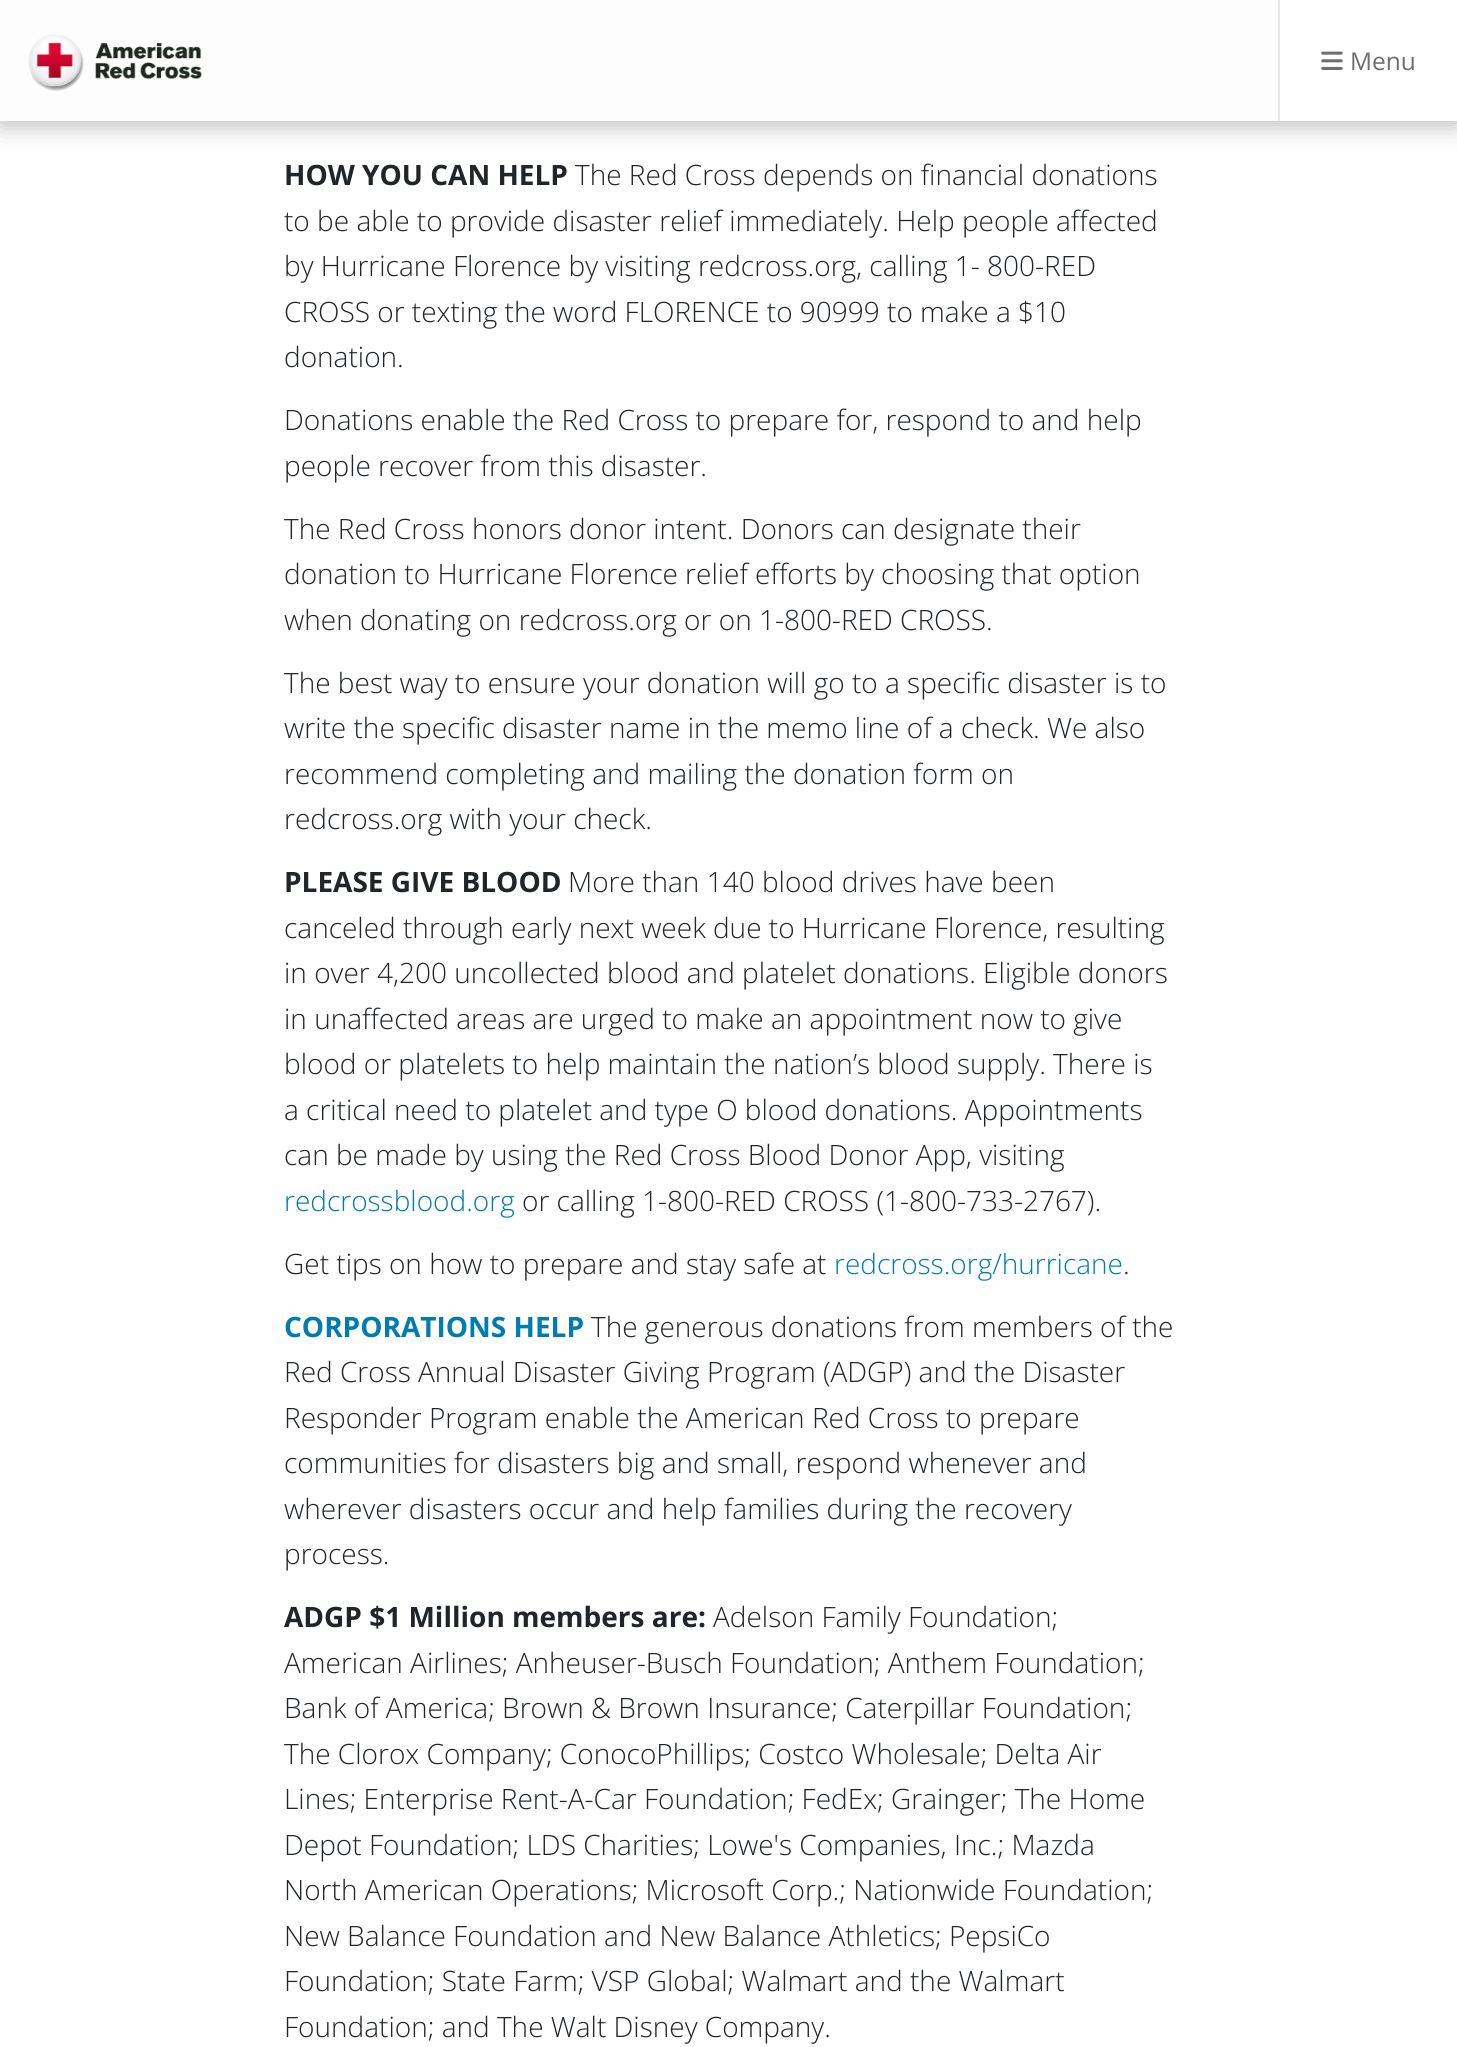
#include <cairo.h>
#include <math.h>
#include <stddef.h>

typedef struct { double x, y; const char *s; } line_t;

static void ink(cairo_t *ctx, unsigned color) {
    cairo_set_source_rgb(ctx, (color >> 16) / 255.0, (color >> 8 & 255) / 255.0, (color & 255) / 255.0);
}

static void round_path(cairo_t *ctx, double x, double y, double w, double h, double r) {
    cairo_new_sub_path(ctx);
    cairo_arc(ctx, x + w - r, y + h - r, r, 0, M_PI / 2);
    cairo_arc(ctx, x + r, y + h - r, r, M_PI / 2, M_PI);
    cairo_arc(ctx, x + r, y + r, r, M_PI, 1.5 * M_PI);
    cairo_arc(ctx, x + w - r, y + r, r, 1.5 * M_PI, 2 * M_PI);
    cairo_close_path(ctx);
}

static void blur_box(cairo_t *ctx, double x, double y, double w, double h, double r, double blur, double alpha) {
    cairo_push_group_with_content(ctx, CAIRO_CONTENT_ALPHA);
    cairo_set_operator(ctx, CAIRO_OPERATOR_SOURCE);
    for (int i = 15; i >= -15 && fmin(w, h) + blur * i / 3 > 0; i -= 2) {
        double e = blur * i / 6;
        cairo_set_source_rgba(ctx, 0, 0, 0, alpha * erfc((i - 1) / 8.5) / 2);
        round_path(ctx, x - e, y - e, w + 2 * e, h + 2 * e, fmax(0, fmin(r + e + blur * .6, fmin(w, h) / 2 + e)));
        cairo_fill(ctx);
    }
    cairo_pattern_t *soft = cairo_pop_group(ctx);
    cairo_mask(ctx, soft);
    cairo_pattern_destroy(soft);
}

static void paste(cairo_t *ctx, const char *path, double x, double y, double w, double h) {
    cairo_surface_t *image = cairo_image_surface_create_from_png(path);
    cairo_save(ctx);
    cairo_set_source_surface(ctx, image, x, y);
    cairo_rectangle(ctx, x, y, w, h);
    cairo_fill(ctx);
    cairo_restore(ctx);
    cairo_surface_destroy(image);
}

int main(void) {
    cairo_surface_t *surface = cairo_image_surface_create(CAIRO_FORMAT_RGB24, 1457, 2047);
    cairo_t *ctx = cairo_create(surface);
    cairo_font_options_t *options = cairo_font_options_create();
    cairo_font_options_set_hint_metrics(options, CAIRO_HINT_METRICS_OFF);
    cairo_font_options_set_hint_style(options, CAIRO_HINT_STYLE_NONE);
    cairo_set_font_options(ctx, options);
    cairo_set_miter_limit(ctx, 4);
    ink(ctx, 0xFFFFFF);
    cairo_paint(ctx);
    ink(ctx, 0x000000);
    blur_box(ctx, 0, 4, 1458, 120, 0, 13, 0.3);
    ink(ctx, 0xFDFDFD);
    cairo_rectangle(ctx, 0, 0, 1278, 121);
    cairo_fill(ctx);
    paste(ctx, "media/1.png", 28, 34, 174, 57);
    ink(ctx, 0xFFFFFF);
    cairo_rectangle(ctx, 1280, 0, 177, 121);
    cairo_fill(ctx);
    ink(ctx, 0xE8E8E8);
    cairo_rectangle(ctx, 1278, 0, 2, 121);
    cairo_fill(ctx);
    paste(ctx, "media/2.png", 1321, 51, 22, 19);
    cairo_select_font_face(ctx, "Open Sans", CAIRO_FONT_SLANT_NORMAL, CAIRO_FONT_WEIGHT_NORMAL);
    cairo_set_font_size(ctx, 24.5);
    ink(ctx, 0x6D6E70);
    cairo_move_to(ctx, 1350, 70);
    cairo_show_text(ctx, "Menu");
    cairo_select_font_face(ctx, "Open Sans", CAIRO_FONT_SLANT_NORMAL, CAIRO_FONT_WEIGHT_BOLD);
    cairo_set_font_size(ctx, 28);
    ink(ctx, 0x212529);
    cairo_move_to(ctx, 284, 185);
    cairo_show_text(ctx, "HOW YOU CAN HELP");
    cairo_select_font_face(ctx, "Open Sans Light", CAIRO_FONT_SLANT_NORMAL, CAIRO_FONT_WEIGHT_NORMAL);
    {
        static const line_t items[] = {
            {575, 185, "The Red Cross depends on financial donations"},
            {284, 231, "to be able to provide disaster relief immediately. Help people affected"},
            {284, 276, "by Hurricane Florence by visiting redcross.org, calling 1- 800-RED"},
            {284, 322, "CROSS or texting the word FLORENCE to 90999 to make a $10"},
            {284, 367, "donation."},
            {284, 430, "Donations enable the Red Cross to prepare for, respond to and help"},
            {284, 476, "people recover from this disaster."},
            {284, 539, "The Red Cross honors donor intent. Donors can designate their"},
            {284, 584, "donation to Hurricane Florence relief efforts by choosing that option"},
            {284, 630, "when donating on redcross.org or on 1-800-RED CROSS."},
            {284, 693, "The best way to ensure your donation will go to a specific disaster is to"},
            {284, 738, "write the specific disaster name in the memo line of a check. We also"},
            {284, 784, "recommend completing and mailing the donation form on"},
            {284, 829, "redcross.org with your check."},
        };
        for (size_t i = 0; i < sizeof items / sizeof *items; i++) {
            cairo_move_to(ctx, items[i].x, items[i].y);
            cairo_show_text(ctx, items[i].s);
        }
    }
    cairo_select_font_face(ctx, "Open Sans", CAIRO_FONT_SLANT_NORMAL, CAIRO_FONT_WEIGHT_BOLD);
    cairo_move_to(ctx, 284, 892);
    cairo_show_text(ctx, "PLEASE GIVE BLOOD");
    cairo_select_font_face(ctx, "Open Sans Light", CAIRO_FONT_SLANT_NORMAL, CAIRO_FONT_WEIGHT_NORMAL);
    {
        static const line_t items[] = {
            {568, 892, "More than 140 blood drives have been"},
            {284, 938, "canceled through early next week due to Hurricane Florence, resulting"},
            {284, 983, "in over 4,200 uncollected blood and platelet donations. Eligible donors"},
            {284, 1029, "in unaffected areas are urged to make an appointment now to give"},
            {284, 1074, "blood or platelets to help maintain the nation’s blood supply. There is"},
            {284, 1120, "a critical need to platelet and type O blood donations. Appointments"},
            {284, 1165, "can be made by using the Red Cross Blood Donor App, visiting"},
        };
        for (size_t i = 0; i < sizeof items / sizeof *items; i++) {
            cairo_move_to(ctx, items[i].x, items[i].y);
            cairo_show_text(ctx, items[i].s);
        }
    }
    ink(ctx, 0x007CAF);
    cairo_move_to(ctx, 284, 1211);
    cairo_show_text(ctx, "redcrossblood.org");
    ink(ctx, 0x212529);
    cairo_move_to(ctx, 522, 1211);
    cairo_show_text(ctx, "or calling 1-800-RED CROSS (1-800-733-2767).");
    cairo_move_to(ctx, 284, 1274);
    cairo_show_text(ctx, "Get tips on how to prepare and stay safe at");
    ink(ctx, 0x007CAF);
    cairo_move_to(ctx, 834, 1274);
    cairo_show_text(ctx, "redcross.org/hurricane");
    ink(ctx, 0x212529);
    cairo_move_to(ctx, 1123, 1274);
    cairo_show_text(ctx, ".");
    cairo_select_font_face(ctx, "Open Sans", CAIRO_FONT_SLANT_NORMAL, CAIRO_FONT_WEIGHT_BOLD);
    ink(ctx, 0x007CAF);
    cairo_move_to(ctx, 284, 1337);
    cairo_show_text(ctx, "CORPORATIONS HELP");
    cairo_select_font_face(ctx, "Open Sans Light", CAIRO_FONT_SLANT_NORMAL, CAIRO_FONT_WEIGHT_NORMAL);
    ink(ctx, 0x212529);
    {
        static const line_t items[] = {
            {591, 1337, "The generous donations from members of the"},
            {284, 1382, "Red Cross Annual Disaster Giving Program (ADGP) and the Disaster"},
            {284, 1428, "Responder Program enable the American Red Cross to prepare"},
            {284, 1473, "communities for disasters big and small, respond whenever and"},
            {284, 1519, "wherever disasters occur and help families during the recovery"},
            {284, 1564, "process."},
        };
        for (size_t i = 0; i < sizeof items / sizeof *items; i++) {
            cairo_move_to(ctx, items[i].x, items[i].y);
            cairo_show_text(ctx, items[i].s);
        }
    }
    cairo_select_font_face(ctx, "Open Sans", CAIRO_FONT_SLANT_NORMAL, CAIRO_FONT_WEIGHT_BOLD);
    cairo_move_to(ctx, 284, 1627);
    cairo_show_text(ctx, "ADGP $1 Million members are:");
    cairo_select_font_face(ctx, "Open Sans Light", CAIRO_FONT_SLANT_NORMAL, CAIRO_FONT_WEIGHT_NORMAL);
    {
        static const line_t items[] = {
            {713, 1627, "Adelson Family Foundation;"},
            {284, 1673, "American Airlines; Anheuser-Busch Foundation; Anthem Foundation;"},
            {284, 1718, "Bank of America; Brown & Brown Insurance; Caterpillar Foundation;"},
            {284, 1764, "The Clorox Company; ConocoPhillips; Costco Wholesale; Delta Air"},
            {284, 1809, "Lines; Enterprise Rent-A-Car Foundation; FedEx; Grainger; The Home"},
            {284, 1855, "Depot Foundation; LDS Charities; Lowe's Companies, Inc.; Mazda"},
            {284, 1900, "North American Operations; Microsoft Corp.; Nationwide Foundation;"},
            {284, 1946, "New Balance Foundation and New Balance Athletics; PepsiCo"},
            {284, 1991, "Foundation; State Farm; VSP Global; Walmart and the Walmart"},
            {284, 2037, "Foundation; and The Walt Disney Company."},
        };
        for (size_t i = 0; i < sizeof items / sizeof *items; i++) {
            cairo_move_to(ctx, items[i].x, items[i].y);
            cairo_show_text(ctx, items[i].s);
        }
    }
    cairo_surface_write_to_png(surface, "image.png");
    cairo_font_options_destroy(options);
    cairo_destroy(ctx);
    cairo_surface_destroy(surface);
    return 0;
}
